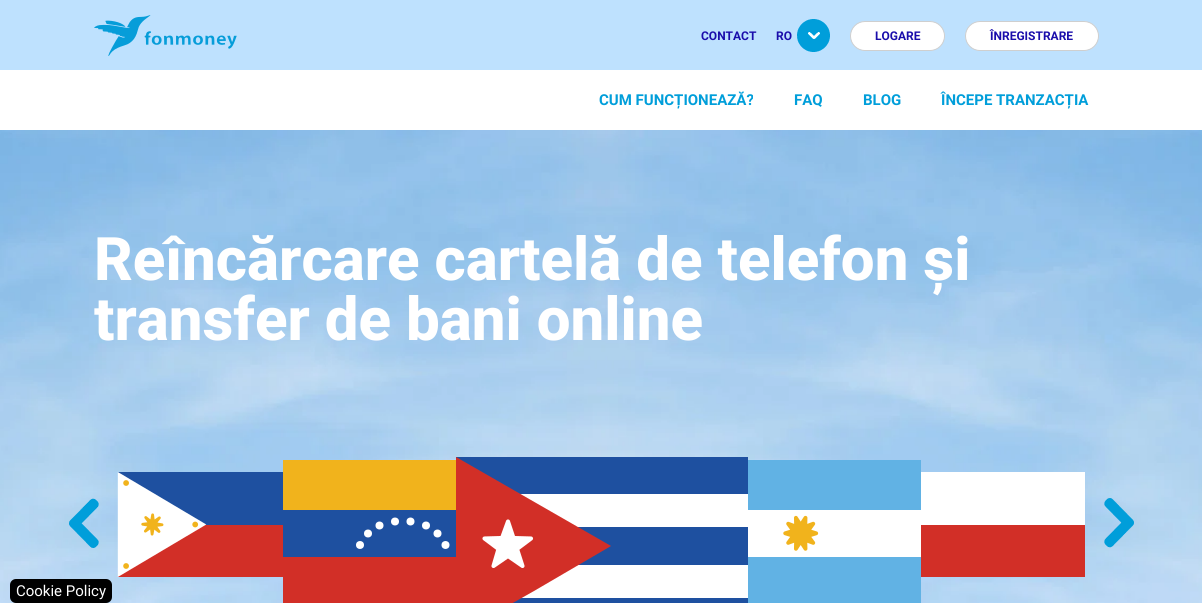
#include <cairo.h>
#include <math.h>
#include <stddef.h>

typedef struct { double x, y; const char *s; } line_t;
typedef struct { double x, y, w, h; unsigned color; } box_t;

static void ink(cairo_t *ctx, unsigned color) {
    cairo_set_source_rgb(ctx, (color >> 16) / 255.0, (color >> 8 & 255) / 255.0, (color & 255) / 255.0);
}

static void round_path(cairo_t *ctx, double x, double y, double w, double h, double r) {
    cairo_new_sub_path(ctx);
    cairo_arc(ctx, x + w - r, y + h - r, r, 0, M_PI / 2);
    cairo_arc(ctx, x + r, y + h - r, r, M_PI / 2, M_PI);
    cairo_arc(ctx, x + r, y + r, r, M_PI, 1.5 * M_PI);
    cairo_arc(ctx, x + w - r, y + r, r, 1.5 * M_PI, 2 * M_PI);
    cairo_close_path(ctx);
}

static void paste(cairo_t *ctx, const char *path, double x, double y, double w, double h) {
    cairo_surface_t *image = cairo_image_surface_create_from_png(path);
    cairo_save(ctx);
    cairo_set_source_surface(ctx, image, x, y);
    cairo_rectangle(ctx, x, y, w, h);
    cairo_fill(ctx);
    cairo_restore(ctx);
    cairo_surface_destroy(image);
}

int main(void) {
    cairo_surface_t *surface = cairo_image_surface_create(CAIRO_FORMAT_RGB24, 1202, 603);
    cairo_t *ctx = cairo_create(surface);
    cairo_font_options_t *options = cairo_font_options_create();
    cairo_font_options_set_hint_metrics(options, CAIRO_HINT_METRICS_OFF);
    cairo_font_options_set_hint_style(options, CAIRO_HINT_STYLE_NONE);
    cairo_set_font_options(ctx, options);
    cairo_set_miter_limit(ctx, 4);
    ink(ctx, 0xFFFFFF);
    cairo_paint(ctx);
    ink(ctx, 0xBEE1FE);
    cairo_rectangle(ctx, 0, 0, 1202, 70);
    cairo_fill(ctx);
    paste(ctx, "media/1.png", 94, 15, 143, 41);
    cairo_select_font_face(ctx, "Roboto", CAIRO_FONT_SLANT_NORMAL, CAIRO_FONT_WEIGHT_BOLD);
    cairo_set_font_size(ctx, 12);
    ink(ctx, 0x1A0DAB);
    cairo_move_to(ctx, 701, 40);
    cairo_show_text(ctx, "CONTACT");
    cairo_move_to(ctx, 776, 40);
    cairo_show_text(ctx, "RO");
    paste(ctx, "media/2.png", 797, 19, 33, 33);
    ink(ctx, 0xFFFFFF);
    round_path(ctx, 850.5, 21.5, 94, 29, 14.5);
    cairo_fill_preserve(ctx);
    ink(ctx, 0xCFCFCF);
    cairo_set_line_width(ctx, 1);
    cairo_stroke(ctx);
    ink(ctx, 0x1A0DAB);
    cairo_move_to(ctx, 875, 40);
    cairo_show_text(ctx, "LOGARE");
    ink(ctx, 0xFFFFFF);
    round_path(ctx, 965.5, 21.5, 133, 29, 14.5);
    cairo_fill_preserve(ctx);
    ink(ctx, 0xCFCFCF);
    cairo_stroke(ctx);
    ink(ctx, 0x1A0DAB);
    cairo_move_to(ctx, 990, 40);
    cairo_show_text(ctx, "ÎNREGISTRARE");
    cairo_set_font_size(ctx, 15);
    ink(ctx, 0x009EDA);
    {
        static const line_t items[] = {
            {599, 105, "CUM FUNCȚIONEAZĂ?"},
            {794, 105, "FAQ"},
            {863, 105, "BLOG"},
            {941, 105, "ÎNCEPE TRANZACȚIA"},
        };
        for (size_t i = 0; i < sizeof items / sizeof *items; i++) {
            cairo_move_to(ctx, items[i].x, items[i].y);
            cairo_show_text(ctx, items[i].s);
        }
    }
    paste(ctx, "media/3.png", 0, 130, 1202, 473);
    cairo_select_font_face(ctx, "Roboto ExtraBold", CAIRO_FONT_SLANT_NORMAL, CAIRO_FONT_WEIGHT_NORMAL);
    cairo_set_font_size(ctx, 60);
    ink(ctx, 0xFFFFFF);
    cairo_move_to(ctx, 94, 280);
    cairo_show_text(ctx, "Reîncărcare cartelă de telefon și");
    cairo_move_to(ctx, 94, 340);
    cairo_show_text(ctx, "transfer de bani online");
    paste(ctx, "media/4.png", 69, 498, 30, 50);
    paste(ctx, "media/5.png", 117, 472, 166, 105);
    {
        static const box_t items[] = {
            {283, 557, 173, 46, 0xD22F27},
            {283, 460, 173, 50, 0xF1B31C},
            {283, 510, 173, 47, 0x1E50A0},
        };
        for (size_t i = 0; i < sizeof items / sizeof *items; i++) {
            ink(ctx, items[i].color);
            cairo_rectangle(ctx, items[i].x, items[i].y, items[i].w, items[i].h);
            cairo_fill(ctx);
        }
    }
    ink(ctx, 0xFFFFFF);
    cairo_arc(ctx, 395, 521.5, 4, 0, 2 * M_PI);
    cairo_fill(ctx);
    cairo_arc(ctx, 410.5, 521.5, 4, 0, 2 * M_PI);
    cairo_fill(ctx);
    cairo_arc(ctx, 379.5, 525.5, 4, 0, 2 * M_PI);
    cairo_fill(ctx);
    cairo_arc(ctx, 368, 533.5, 4, 0, 2 * M_PI);
    cairo_fill(ctx);
    cairo_arc(ctx, 360, 545, 4, 0, 2 * M_PI);
    cairo_fill(ctx);
    cairo_arc(ctx, 426, 525.5, 4, 0, 2 * M_PI);
    cairo_fill(ctx);
    cairo_arc(ctx, 437.5, 533.5, 4, 0, 2 * M_PI);
    cairo_fill(ctx);
    cairo_arc(ctx, 445.5, 545, 4, 0, 2 * M_PI);
    cairo_fill(ctx);
    {
        static const box_t items[] = {
            {520, 494, 228, 104, 0xFFFFFF},
            {578, 527, 170, 38, 0x1E50A0},
            {512, 598, 236, 5, 0x1E50A0},
            {456, 457, 292, 37, 0x1E50A0},
        };
        for (size_t i = 0; i < sizeof items / sizeof *items; i++) {
            ink(ctx, items[i].color);
            cairo_rectangle(ctx, items[i].x, items[i].y, items[i].w, items[i].h);
            cairo_fill(ctx);
        }
    }
    ink(ctx, 0xD22F27);
    cairo_new_path(ctx);
    cairo_move_to(ctx, 456, 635);
    cairo_line_to(ctx, 456, 457);
    cairo_line_to(ctx, 611, 546);
    cairo_line_to(ctx, 534, 591);
    cairo_close_path(ctx);
    cairo_fill(ctx);
    ink(ctx, 0xFFFFFF);
    cairo_new_path(ctx);
    cairo_move_to(ctx, 508, 521);
    cairo_line_to(ctx, 514, 538);
    cairo_line_to(ctx, 531, 539);
    cairo_line_to(ctx, 517, 549);
    cairo_line_to(ctx, 522, 566);
    cairo_line_to(ctx, 508, 556);
    cairo_line_to(ctx, 493, 566);
    cairo_line_to(ctx, 498, 549);
    cairo_line_to(ctx, 484, 539);
    cairo_line_to(ctx, 502, 538);
    cairo_close_path(ctx);
    cairo_fill(ctx);
    cairo_new_path(ctx);
    cairo_move_to(ctx, 508, 521.5);
    cairo_line_to(ctx, 513.5, 538);
    cairo_line_to(ctx, 531, 538.5);
    cairo_line_to(ctx, 517, 549);
    cairo_line_to(ctx, 522.5, 566);
    cairo_line_to(ctx, 508, 556);
    cairo_line_to(ctx, 493.5, 566);
    cairo_line_to(ctx, 498.5, 549);
    cairo_line_to(ctx, 484.5, 538.5);
    cairo_line_to(ctx, 502, 538);
    cairo_close_path(ctx);
    cairo_set_line_width(ctx, 4.1);
    cairo_set_line_cap(ctx, CAIRO_LINE_CAP_ROUND);
    cairo_set_line_join(ctx, CAIRO_LINE_JOIN_ROUND);
    cairo_stroke(ctx);
    paste(ctx, "media/6.png", 748, 460, 173, 143);
    cairo_rectangle(ctx, 921, 472, 164, 53);
    cairo_fill(ctx);
    ink(ctx, 0xD22F27);
    cairo_rectangle(ctx, 921, 525, 164, 52);
    cairo_fill(ctx);
    paste(ctx, "media/7.png", 1104, 498, 30, 50);
    ink(ctx, 0x000000);
    round_path(ctx, 10, 579, 102, 24, 6);
    cairo_fill(ctx);
    cairo_select_font_face(ctx, "Roboto", CAIRO_FONT_SLANT_NORMAL, CAIRO_FONT_WEIGHT_NORMAL);
    cairo_set_font_size(ctx, 15);
    ink(ctx, 0xFFFFFF);
    cairo_move_to(ctx, 16, 596);
    cairo_show_text(ctx, "Cookie Policy");
    cairo_surface_write_to_png(surface, "image.png");
    cairo_font_options_destroy(options);
    cairo_destroy(ctx);
    cairo_surface_destroy(surface);
    return 0;
}
